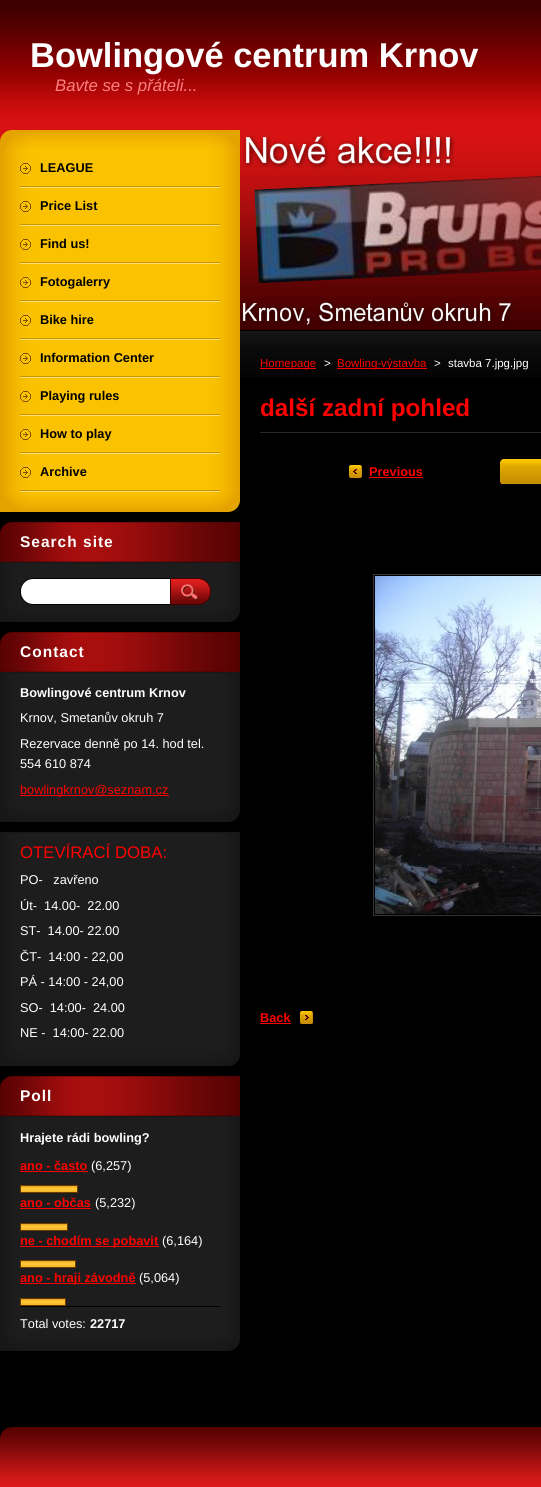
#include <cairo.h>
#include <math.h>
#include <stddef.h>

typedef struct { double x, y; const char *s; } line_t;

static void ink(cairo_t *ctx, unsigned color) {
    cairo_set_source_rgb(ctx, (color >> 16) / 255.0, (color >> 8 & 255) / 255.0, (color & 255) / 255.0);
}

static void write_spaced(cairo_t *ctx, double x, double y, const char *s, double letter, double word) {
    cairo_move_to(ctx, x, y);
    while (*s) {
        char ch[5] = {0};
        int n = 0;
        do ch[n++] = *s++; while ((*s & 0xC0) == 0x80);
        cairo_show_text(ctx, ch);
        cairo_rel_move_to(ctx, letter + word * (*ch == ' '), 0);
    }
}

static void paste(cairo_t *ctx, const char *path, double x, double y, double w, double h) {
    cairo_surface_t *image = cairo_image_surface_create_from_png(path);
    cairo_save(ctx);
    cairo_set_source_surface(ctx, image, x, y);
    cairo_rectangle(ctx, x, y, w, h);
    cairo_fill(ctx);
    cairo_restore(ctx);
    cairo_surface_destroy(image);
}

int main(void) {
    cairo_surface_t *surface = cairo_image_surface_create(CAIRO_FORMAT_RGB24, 541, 1487);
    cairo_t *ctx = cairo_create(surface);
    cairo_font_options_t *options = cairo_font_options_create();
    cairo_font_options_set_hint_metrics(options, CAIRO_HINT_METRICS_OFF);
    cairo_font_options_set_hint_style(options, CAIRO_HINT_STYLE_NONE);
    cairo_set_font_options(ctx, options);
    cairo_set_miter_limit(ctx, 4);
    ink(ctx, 0x000000);
    cairo_paint(ctx);
    paste(ctx, "media/1.png", 0, 0, 541, 377);
    cairo_select_font_face(ctx, "Liberation Sans", CAIRO_FONT_SLANT_NORMAL, CAIRO_FONT_WEIGHT_BOLD);
    cairo_set_font_size(ctx, 34.5);
    ink(ctx, 0xFFFFFF);
    cairo_move_to(ctx, 30, 67);
    cairo_show_text(ctx, "Bowlingové centrum Krnov");
    cairo_select_font_face(ctx, "Liberation Sans", CAIRO_FONT_SLANT_ITALIC, CAIRO_FONT_WEIGHT_NORMAL);
    cairo_set_font_size(ctx, 16.75);
    ink(ctx, 0xFF8080);
    cairo_move_to(ctx, 55, 91);
    cairo_show_text(ctx, "Bavte se s přáteli...");
    paste(ctx, "media/2.png", 0, 130, 240, 20);
    paste(ctx, "media/3.png", 0, 492, 240, 20);
    paste(ctx, "media/4.png", 0, 150, 240, 342);
    paste(ctx, "media/5.png", 20, 186, 200, 2);
    paste(ctx, "media/6.png", 20, 163, 11, 11);
    cairo_select_font_face(ctx, "Liberation Sans", CAIRO_FONT_SLANT_NORMAL, CAIRO_FONT_WEIGHT_BOLD);
    cairo_set_font_size(ctx, 12.75);
    ink(ctx, 0x000000);
    cairo_move_to(ctx, 40, 172);
    cairo_show_text(ctx, "LEAGUE");
    paste(ctx, "media/5.png", 20, 224, 200, 2);
    paste(ctx, "media/6.png", 20, 201, 11, 11);
    cairo_move_to(ctx, 40, 210);
    cairo_show_text(ctx, "Price List");
    paste(ctx, "media/5.png", 20, 262, 200, 2);
    paste(ctx, "media/6.png", 20, 239, 11, 11);
    cairo_move_to(ctx, 40, 248);
    cairo_show_text(ctx, "Find us!");
    paste(ctx, "media/5.png", 20, 300, 200, 2);
    paste(ctx, "media/6.png", 20, 277, 11, 11);
    cairo_move_to(ctx, 40, 286);
    cairo_show_text(ctx, "Fotogalerry");
    paste(ctx, "media/5.png", 20, 338, 200, 2);
    paste(ctx, "media/6.png", 20, 315, 11, 11);
    cairo_move_to(ctx, 40, 324);
    cairo_show_text(ctx, "Bike hire");
    paste(ctx, "media/5.png", 20, 376, 200, 2);
    paste(ctx, "media/6.png", 20, 353, 11, 11);
    cairo_move_to(ctx, 40, 362);
    cairo_show_text(ctx, "Information Center");
    paste(ctx, "media/5.png", 20, 414, 200, 2);
    paste(ctx, "media/6.png", 20, 391, 11, 11);
    cairo_move_to(ctx, 40, 400);
    cairo_show_text(ctx, "Playing rules");
    paste(ctx, "media/5.png", 20, 452, 200, 2);
    paste(ctx, "media/6.png", 20, 429, 11, 11);
    cairo_move_to(ctx, 40, 438);
    cairo_show_text(ctx, "How to play");
    paste(ctx, "media/5.png", 20, 490, 200, 2);
    paste(ctx, "media/6.png", 20, 467, 11, 11);
    cairo_move_to(ctx, 40, 476);
    cairo_show_text(ctx, "Archive");
    paste(ctx, "media/7.png", 0, 605, 240, 17);
    paste(ctx, "media/8.png", 0, 522, 240, 40);
    cairo_set_font_size(ctx, 15.5);
    ink(ctx, 0xFFFFFF);
    write_spaced(ctx, 20, 547, "Search site", 1, 0);
    paste(ctx, "media/9.png", 0, 563, 240, 42);
    ink(ctx, 0x171717);
    cairo_rectangle(ctx, 0, 562, 240, 1);
    cairo_fill(ctx);
    paste(ctx, "media/10.png", 20, 578, 150, 27);
    paste(ctx, "media/11.png", 170, 578, 41, 27);
    paste(ctx, "media/7.png", 0, 805, 240, 17);
    paste(ctx, "media/8.png", 0, 632, 240, 40);
    ink(ctx, 0xFFFFFF);
    write_spaced(ctx, 20, 657, "Contact", 1, 0);
    paste(ctx, "media/12.png", 0, 673, 240, 132);
    ink(ctx, 0x171717);
    cairo_rectangle(ctx, 0, 672, 240, 1);
    cairo_fill(ctx);
    cairo_set_font_size(ctx, 12.75);
    ink(ctx, 0xFFFFFF);
    cairo_move_to(ctx, 20, 697);
    cairo_show_text(ctx, "Bowlingové centrum Krnov");
    cairo_select_font_face(ctx, "Liberation Sans", CAIRO_FONT_SLANT_NORMAL, CAIRO_FONT_WEIGHT_NORMAL);
    {
        static const line_t items[] = {
            {20, 722, "Krnov, Smetanův okruh 7"},
            {20, 748, "Rezervace denně po 14. hod tel."},
            {20, 768, "554 610 874"},
        };
        for (size_t i = 0; i < sizeof items / sizeof *items; i++) {
            cairo_move_to(ctx, items[i].x, items[i].y);
            cairo_show_text(ctx, items[i].s);
        }
    }
    ink(ctx, 0xFF0000);
    cairo_rectangle(ctx, 20, 795, 149, 1);
    cairo_fill(ctx);
    cairo_move_to(ctx, 20, 794);
    cairo_show_text(ctx, "bowlingkrnov@seznam.cz");
    paste(ctx, "media/7.png", 0, 1049, 240, 17);
    paste(ctx, "media/13.png", 0, 833, 240, 216);
    ink(ctx, 0x171717);
    cairo_rectangle(ctx, 0, 832, 240, 1);
    cairo_fill(ctx);
    cairo_set_font_size(ctx, 16.75);
    ink(ctx, 0xFF0000);
    cairo_move_to(ctx, 20, 858);
    cairo_show_text(ctx, "OTEVÍRACÍ DOBA:");
    cairo_set_font_size(ctx, 12.75);
    ink(ctx, 0xFFFFFF);
    {
        static const line_t items[] = {
            {20, 884, "PO-   zavřeno"},
            {20, 910, "Út-  14.00-  22.00"},
            {20, 935, "ST-  14.00- 22.00"},
            {20, 961, "ČT-  14:00 - 22,00"},
            {20, 986, "PÁ - 14:00 - 24,00"},
            {20, 1012, "SO-  14:00-  24.00"},
            {20, 1037, "NE -  14:00- 22.00"},
        };
        for (size_t i = 0; i < sizeof items / sizeof *items; i++) {
            cairo_move_to(ctx, items[i].x, items[i].y);
            cairo_show_text(ctx, items[i].s);
        }
    }
    paste(ctx, "media/7.png", 0, 1334, 240, 17);
    paste(ctx, "media/8.png", 0, 1076, 240, 40);
    cairo_select_font_face(ctx, "Liberation Sans", CAIRO_FONT_SLANT_NORMAL, CAIRO_FONT_WEIGHT_BOLD);
    cairo_set_font_size(ctx, 15.5);
    write_spaced(ctx, 20, 1101, "Poll", 1, 0);
    paste(ctx, "media/14.png", 0, 1117, 240, 217);
    ink(ctx, 0x171717);
    cairo_rectangle(ctx, 0, 1116, 240, 1);
    cairo_fill(ctx);
    cairo_set_font_size(ctx, 12.75);
    ink(ctx, 0xFFFFFF);
    cairo_move_to(ctx, 20, 1142);
    cairo_show_text(ctx, "Hrajete rádi bowling?");
    ink(ctx, 0xFF0000);
    cairo_move_to(ctx, 20, 1170);
    cairo_show_text(ctx, "ano - často");
    cairo_rectangle(ctx, 20, 1171, 68, 1);
    cairo_fill(ctx);
    cairo_select_font_face(ctx, "Liberation Sans", CAIRO_FONT_SLANT_NORMAL, CAIRO_FONT_WEIGHT_NORMAL);
    ink(ctx, 0xFFFFFF);
    cairo_move_to(ctx, 91, 1170);
    cairo_show_text(ctx, "(6,257)");
    cairo_rectangle(ctx, 20.5, 1185.5, 57, 7);
    ink(ctx, 0x6A3C00);
    cairo_set_line_width(ctx, 1);
    cairo_stroke(ctx);
    paste(ctx, "media/15.png", 21, 1186, 56, 6);
    cairo_select_font_face(ctx, "Liberation Sans", CAIRO_FONT_SLANT_NORMAL, CAIRO_FONT_WEIGHT_BOLD);
    ink(ctx, 0xFF0000);
    cairo_move_to(ctx, 20, 1207);
    cairo_show_text(ctx, "ano - občas");
    cairo_rectangle(ctx, 20, 1208, 71, 1);
    cairo_fill(ctx);
    cairo_select_font_face(ctx, "Liberation Sans", CAIRO_FONT_SLANT_NORMAL, CAIRO_FONT_WEIGHT_NORMAL);
    ink(ctx, 0xFFFFFF);
    cairo_move_to(ctx, 95, 1207);
    cairo_show_text(ctx, "(5,232)");
    cairo_rectangle(ctx, 20.5, 1223.5, 47, 7);
    ink(ctx, 0x6A3C00);
    cairo_stroke(ctx);
    paste(ctx, "media/16.png", 21, 1224, 46, 6);
    ink(ctx, 0xFF0000);
    cairo_rectangle(ctx, 20, 1246, 139, 1);
    cairo_fill(ctx);
    cairo_select_font_face(ctx, "Liberation Sans", CAIRO_FONT_SLANT_NORMAL, CAIRO_FONT_WEIGHT_BOLD);
    cairo_move_to(ctx, 20, 1245);
    cairo_show_text(ctx, "ne - chodím se pobavit");
    cairo_select_font_face(ctx, "Liberation Sans", CAIRO_FONT_SLANT_NORMAL, CAIRO_FONT_WEIGHT_NORMAL);
    ink(ctx, 0xFFFFFF);
    cairo_move_to(ctx, 162, 1245);
    cairo_show_text(ctx, "(6,164)");
    cairo_rectangle(ctx, 20.5, 1260.5, 55, 7);
    ink(ctx, 0x6A3C00);
    cairo_stroke(ctx);
    paste(ctx, "media/17.png", 21, 1261, 54, 6);
    ink(ctx, 0xFF0000);
    cairo_rectangle(ctx, 20, 1283, 116, 1);
    cairo_fill(ctx);
    cairo_select_font_face(ctx, "Liberation Sans", CAIRO_FONT_SLANT_NORMAL, CAIRO_FONT_WEIGHT_BOLD);
    cairo_move_to(ctx, 20, 1282);
    cairo_show_text(ctx, "ano - hraji závodně");
    cairo_select_font_face(ctx, "Liberation Sans", CAIRO_FONT_SLANT_NORMAL, CAIRO_FONT_WEIGHT_NORMAL);
    ink(ctx, 0xFFFFFF);
    cairo_move_to(ctx, 139, 1282);
    cairo_show_text(ctx, "(5,064)");
    cairo_rectangle(ctx, 20.5, 1298.5, 45, 7);
    ink(ctx, 0x6A3C00);
    cairo_stroke(ctx);
    paste(ctx, "media/18.png", 21, 1299, 44, 6);
    ink(ctx, 0x000000);
    cairo_rectangle(ctx, 20, 1306, 200, 1);
    cairo_fill(ctx);
    ink(ctx, 0xFFFFFF);
    cairo_move_to(ctx, 20, 1328);
    cairo_show_text(ctx, "Total votes:");
    cairo_select_font_face(ctx, "Liberation Sans", CAIRO_FONT_SLANT_NORMAL, CAIRO_FONT_WEIGHT_BOLD);
    cairo_move_to(ctx, 90, 1328);
    cairo_show_text(ctx, "22717");
    paste(ctx, "media/19.png", 241, 134, 300, 192);
    ink(ctx, 0xFF0000);
    cairo_rectangle(ctx, 260, 368, 56, 1);
    cairo_fill(ctx);
    cairo_select_font_face(ctx, "Liberation Sans", CAIRO_FONT_SLANT_NORMAL, CAIRO_FONT_WEIGHT_NORMAL);
    cairo_set_font_size(ctx, 11.5);
    cairo_move_to(ctx, 260, 367);
    cairo_show_text(ctx, "Homepage");
    ink(ctx, 0xFFFFFF);
    cairo_move_to(ctx, 324, 367);
    cairo_show_text(ctx, ">");
    ink(ctx, 0xFF0000);
    cairo_rectangle(ctx, 337, 368, 90, 1);
    cairo_fill(ctx);
    cairo_move_to(ctx, 337, 367);
    cairo_show_text(ctx, "Bowling-výstavba");
    ink(ctx, 0xFFFFFF);
    cairo_move_to(ctx, 434, 367);
    cairo_show_text(ctx, ">");
    cairo_move_to(ctx, 448, 367);
    cairo_show_text(ctx, "stavba 7.jpg.jpg");
    ink(ctx, 0x2A2A2A);
    cairo_rectangle(ctx, 260, 432, 281, 1);
    cairo_fill(ctx);
    cairo_select_font_face(ctx, "Liberation Sans", CAIRO_FONT_SLANT_NORMAL, CAIRO_FONT_WEIGHT_BOLD);
    cairo_set_font_size(ctx, 24.25);
    ink(ctx, 0xFF0000);
    cairo_move_to(ctx, 260, 416);
    cairo_show_text(ctx, "další zadní pohled");
    paste(ctx, "media/20.png", 349, 465, 13, 13);
    cairo_set_font_size(ctx, 12.75);
    cairo_move_to(ctx, 369, 476);
    cairo_show_text(ctx, "Previous");
    cairo_rectangle(ctx, 369, 477, 54, 1);
    cairo_fill(ctx);
    paste(ctx, "media/21.png", 500, 459, 3, 25);
    paste(ctx, "media/22.png", 503, 459, 38, 25);
    cairo_rectangle(ctx, 373.5, 574.5, 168, 341);
    ink(ctx, 0x333333);
    cairo_stroke(ctx);
    paste(ctx, "media/23.png", 375, 576, 166, 338);
    paste(ctx, "media/24.png", 300, 1011, 13, 13);
    ink(ctx, 0xFF0000);
    cairo_move_to(ctx, 260, 1022);
    cairo_show_text(ctx, "Back");
    cairo_rectangle(ctx, 260, 1023, 31, 1);
    cairo_fill(ctx);
    paste(ctx, "media/25.png", 0, 1427, 541, 60);
    cairo_surface_write_to_png(surface, "image.png");
    cairo_font_options_destroy(options);
    cairo_destroy(ctx);
    cairo_surface_destroy(surface);
    return 0;
}
